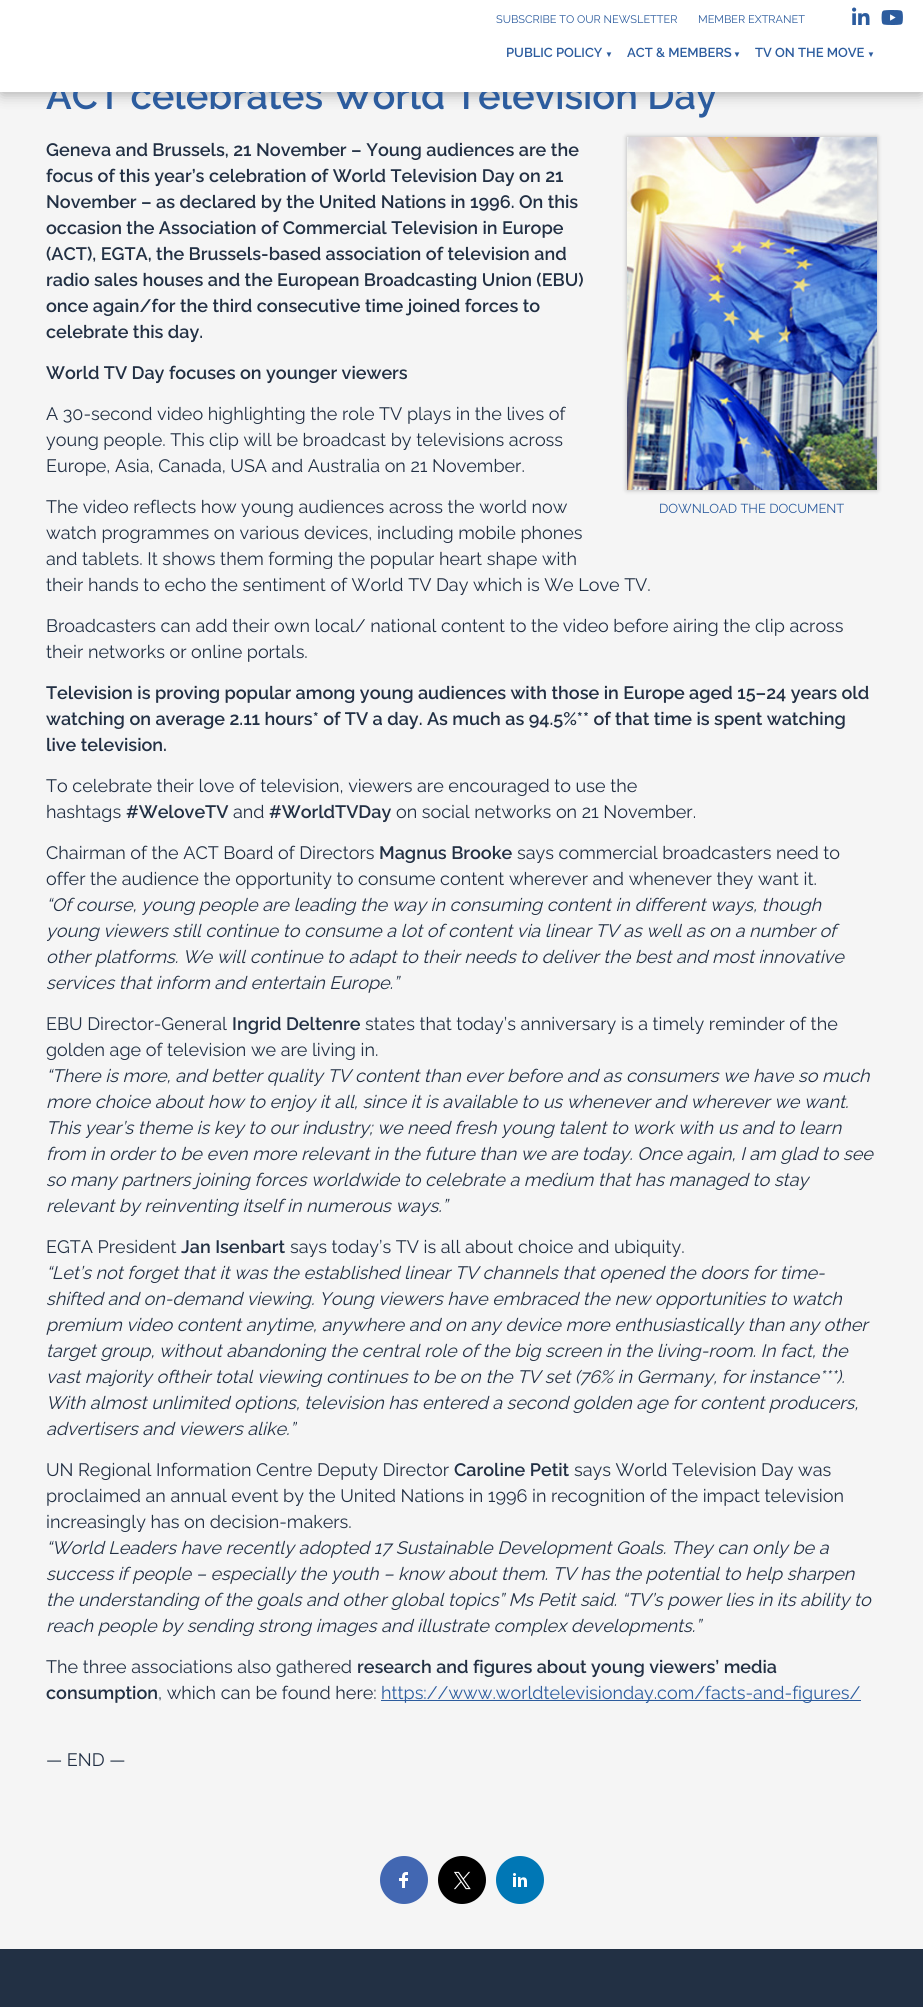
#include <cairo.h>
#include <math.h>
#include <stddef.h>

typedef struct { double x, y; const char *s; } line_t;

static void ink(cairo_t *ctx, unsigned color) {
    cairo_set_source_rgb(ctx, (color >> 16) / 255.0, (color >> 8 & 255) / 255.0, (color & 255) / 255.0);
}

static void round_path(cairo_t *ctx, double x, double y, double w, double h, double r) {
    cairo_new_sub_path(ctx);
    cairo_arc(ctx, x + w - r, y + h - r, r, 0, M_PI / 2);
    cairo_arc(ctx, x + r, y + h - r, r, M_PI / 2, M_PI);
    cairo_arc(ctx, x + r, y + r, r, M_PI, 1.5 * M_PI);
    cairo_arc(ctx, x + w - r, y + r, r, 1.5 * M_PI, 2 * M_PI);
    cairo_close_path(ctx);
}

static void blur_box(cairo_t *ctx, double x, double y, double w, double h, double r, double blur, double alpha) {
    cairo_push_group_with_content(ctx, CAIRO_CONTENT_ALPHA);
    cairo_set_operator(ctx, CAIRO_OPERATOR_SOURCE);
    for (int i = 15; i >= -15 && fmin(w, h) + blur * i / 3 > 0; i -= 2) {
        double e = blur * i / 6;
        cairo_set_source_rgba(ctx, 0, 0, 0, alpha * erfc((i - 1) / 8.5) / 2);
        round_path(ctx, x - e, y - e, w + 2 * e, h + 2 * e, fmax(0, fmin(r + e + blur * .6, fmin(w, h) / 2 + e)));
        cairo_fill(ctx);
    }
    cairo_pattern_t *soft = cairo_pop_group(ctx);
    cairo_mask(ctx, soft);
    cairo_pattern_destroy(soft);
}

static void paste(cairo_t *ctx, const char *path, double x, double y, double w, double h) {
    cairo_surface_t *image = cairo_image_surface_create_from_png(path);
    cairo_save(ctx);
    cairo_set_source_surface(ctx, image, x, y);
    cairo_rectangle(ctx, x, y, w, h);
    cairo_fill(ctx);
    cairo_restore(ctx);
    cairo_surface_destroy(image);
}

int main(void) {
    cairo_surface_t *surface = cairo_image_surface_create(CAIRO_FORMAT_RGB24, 923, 2007);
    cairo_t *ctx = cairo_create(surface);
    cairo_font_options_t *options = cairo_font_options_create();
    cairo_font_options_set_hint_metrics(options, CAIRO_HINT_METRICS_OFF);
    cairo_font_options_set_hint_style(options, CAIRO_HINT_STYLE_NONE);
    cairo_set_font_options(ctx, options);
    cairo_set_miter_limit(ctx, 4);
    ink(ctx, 0xF5F5F5);
    cairo_paint(ctx);
    ink(ctx, 0x000000);
    blur_box(ctx, 2, 5, 919, 88, 0, 7.5, 0.35);
    cairo_select_font_face(ctx, "Raleway SemiBold", CAIRO_FONT_SLANT_NORMAL, CAIRO_FONT_WEIGHT_NORMAL);
    cairo_set_font_size(ctx, 38);
    ink(ctx, 0x2C5C9E);
    cairo_move_to(ctx, 46, 109);
    cairo_show_text(ctx, "ACT celebrates World Television Day");
    ink(ctx, 0xFFFFFF);
    cairo_rectangle(ctx, 0, 0, 923, 92);
    cairo_fill(ctx);
    cairo_select_font_face(ctx, "Raleway", CAIRO_FONT_SLANT_NORMAL, CAIRO_FONT_WEIGHT_NORMAL);
    cairo_set_font_size(ctx, 11);
    ink(ctx, 0x2C5C9E);
    cairo_move_to(ctx, 496, 23);
    cairo_show_text(ctx, "SUBSCRIBE TO OUR NEWSLETTER");
    cairo_move_to(ctx, 698, 23);
    cairo_show_text(ctx, "MEMBER EXTRANET");
    paste(ctx, "media/1.png", 852, 7, 18, 18);
    paste(ctx, "media/2.png", 881, 10, 22, 15);
    cairo_select_font_face(ctx, "Raleway SemiBold", CAIRO_FONT_SLANT_NORMAL, CAIRO_FONT_WEIGHT_NORMAL);
    cairo_set_font_size(ctx, 13);
    cairo_move_to(ctx, 506, 57);
    cairo_show_text(ctx, "PUBLIC POLICY");
    cairo_select_font_face(ctx, "Liberation Sans", CAIRO_FONT_SLANT_NORMAL, CAIRO_FONT_WEIGHT_BOLD);
    cairo_set_font_size(ctx, 8);
    cairo_move_to(ctx, 605, 57);
    cairo_show_text(ctx, "▼");
    cairo_select_font_face(ctx, "Raleway SemiBold", CAIRO_FONT_SLANT_NORMAL, CAIRO_FONT_WEIGHT_NORMAL);
    cairo_set_font_size(ctx, 13);
    cairo_move_to(ctx, 627, 57);
    cairo_show_text(ctx, "ACT & MEMBERS");
    cairo_select_font_face(ctx, "Liberation Sans", CAIRO_FONT_SLANT_NORMAL, CAIRO_FONT_WEIGHT_BOLD);
    cairo_set_font_size(ctx, 8);
    cairo_move_to(ctx, 733, 57);
    cairo_show_text(ctx, "▼");
    cairo_select_font_face(ctx, "Raleway SemiBold", CAIRO_FONT_SLANT_NORMAL, CAIRO_FONT_WEIGHT_NORMAL);
    cairo_set_font_size(ctx, 13);
    cairo_move_to(ctx, 755, 57);
    cairo_show_text(ctx, "TV ON THE MOVE");
    cairo_select_font_face(ctx, "Liberation Sans", CAIRO_FONT_SLANT_NORMAL, CAIRO_FONT_WEIGHT_BOLD);
    cairo_set_font_size(ctx, 8);
    cairo_move_to(ctx, 867, 57);
    cairo_show_text(ctx, "▼");
    cairo_select_font_face(ctx, "Raleway SemiBold", CAIRO_FONT_SLANT_NORMAL, CAIRO_FONT_WEIGHT_NORMAL);
    cairo_set_font_size(ctx, 18);
    ink(ctx, 0x223044);
    {
        static const line_t items[] = {
            {46, 156, "Geneva and Brussels, 21 November – Young audiences are the"},
            {46, 182, "focus of this year’s celebration of World Television Day on 21"},
            {46, 208, "November – as declared by the United Nations in 1996. On this"},
            {46, 234, "occasion the Association of Commercial Television in Europe"},
            {46, 260, "(ACT), EGTA, the Brussels-based association of television and"},
            {46, 286, "radio sales houses and the European Broadcasting Union (EBU)"},
            {46, 312, "once again/for the third consecutive time joined forces to"},
            {46, 338, "celebrate this day."},
            {46, 379, "World TV Day focuses on younger viewers"},
        };
        for (size_t i = 0; i < sizeof items / sizeof *items; i++) {
            cairo_move_to(ctx, items[i].x, items[i].y);
            cairo_show_text(ctx, items[i].s);
        }
    }
    cairo_select_font_face(ctx, "Raleway", CAIRO_FONT_SLANT_NORMAL, CAIRO_FONT_WEIGHT_NORMAL);
    {
        static const line_t items[] = {
            {46, 420, "A 30-second video highlighting the role TV plays in the lives of"},
            {46, 446, "young people. This clip will be broadcast by televisions across"},
            {46, 472, "Europe, Asia, Canada, USA and Australia on 21 November."},
            {46, 513, "The video reflects how young audiences across the world now"},
            {46, 539, "watch programmes on various devices, including mobile phones"},
            {46, 565, "and tablets. It shows them forming the popular heart shape with"},
            {46, 591, "their hands to echo the sentiment of World TV Day which is We Love TV."},
        };
        for (size_t i = 0; i < sizeof items / sizeof *items; i++) {
            cairo_move_to(ctx, items[i].x, items[i].y);
            cairo_show_text(ctx, items[i].s);
        }
    }
    ink(ctx, 0x000000);
    blur_box(ctx, 627, 137, 250, 353, 0, 2.5, 0.28);
    paste(ctx, "media/3.png", 627, 137, 250, 353);
    cairo_set_font_size(ctx, 13);
    ink(ctx, 0x2C5C9E);
    cairo_move_to(ctx, 659, 513);
    cairo_show_text(ctx, "DOWNLOAD THE DOCUMENT");
    cairo_set_font_size(ctx, 18);
    ink(ctx, 0x223044);
    cairo_move_to(ctx, 46, 632);
    cairo_show_text(ctx, "Broadcasters can add their own local/ national content to the video before airing the clip across");
    cairo_move_to(ctx, 46, 658);
    cairo_show_text(ctx, "their networks or online portals.");
    cairo_select_font_face(ctx, "Raleway SemiBold", CAIRO_FONT_SLANT_NORMAL, CAIRO_FONT_WEIGHT_NORMAL);
    {
        static const line_t items[] = {
            {46, 699, "Television is proving popular among young audiences with those in Europe aged 15–24 years old"},
            {46, 725, "watching on average 2.11 hours* of TV a day. As much as 94.5%** of that time is spent watching"},
            {46, 751, "live television."},
        };
        for (size_t i = 0; i < sizeof items / sizeof *items; i++) {
            cairo_move_to(ctx, items[i].x, items[i].y);
            cairo_show_text(ctx, items[i].s);
        }
    }
    cairo_select_font_face(ctx, "Raleway", CAIRO_FONT_SLANT_NORMAL, CAIRO_FONT_WEIGHT_NORMAL);
    cairo_move_to(ctx, 46, 792);
    cairo_show_text(ctx, "To celebrate their love of television, viewers are encouraged to use the");
    cairo_move_to(ctx, 46, 818);
    cairo_show_text(ctx, "hashtags");
    cairo_select_font_face(ctx, "Raleway SemiBold", CAIRO_FONT_SLANT_NORMAL, CAIRO_FONT_WEIGHT_NORMAL);
    cairo_move_to(ctx, 126, 818);
    cairo_show_text(ctx, "#WeloveTV");
    cairo_select_font_face(ctx, "Raleway", CAIRO_FONT_SLANT_NORMAL, CAIRO_FONT_WEIGHT_NORMAL);
    cairo_move_to(ctx, 233, 818);
    cairo_show_text(ctx, "and");
    cairo_select_font_face(ctx, "Raleway SemiBold", CAIRO_FONT_SLANT_NORMAL, CAIRO_FONT_WEIGHT_NORMAL);
    cairo_move_to(ctx, 269, 818);
    cairo_show_text(ctx, "#WorldTVDay");
    cairo_select_font_face(ctx, "Raleway", CAIRO_FONT_SLANT_NORMAL, CAIRO_FONT_WEIGHT_NORMAL);
    cairo_move_to(ctx, 396, 818);
    cairo_show_text(ctx, "on social networks on 21 November.");
    cairo_move_to(ctx, 46, 859);
    cairo_show_text(ctx, "Chairman of the ACT Board of Directors");
    cairo_select_font_face(ctx, "Raleway SemiBold", CAIRO_FONT_SLANT_NORMAL, CAIRO_FONT_WEIGHT_NORMAL);
    cairo_move_to(ctx, 379, 859);
    cairo_show_text(ctx, "Magnus Brooke");
    cairo_select_font_face(ctx, "Raleway", CAIRO_FONT_SLANT_NORMAL, CAIRO_FONT_WEIGHT_NORMAL);
    cairo_move_to(ctx, 517, 859);
    cairo_show_text(ctx, "says commercial broadcasters need to");
    cairo_move_to(ctx, 46, 885);
    cairo_show_text(ctx, "offer the audience the opportunity to consume content wherever and whenever they want it.");
    cairo_select_font_face(ctx, "Raleway", CAIRO_FONT_SLANT_ITALIC, CAIRO_FONT_WEIGHT_NORMAL);
    {
        static const line_t items[] = {
            {46, 911, "“Of course, young people are leading the way in consuming content in different ways, though"},
            {46, 937, "young viewers still continue to consume a lot of content via linear TV as well as on a number of"},
            {46, 963, "other platforms. We will continue to adapt to their needs to deliver the best and most innovative"},
            {46, 989, "services that inform and entertain Europe.”"},
        };
        for (size_t i = 0; i < sizeof items / sizeof *items; i++) {
            cairo_move_to(ctx, items[i].x, items[i].y);
            cairo_show_text(ctx, items[i].s);
        }
    }
    cairo_select_font_face(ctx, "Raleway", CAIRO_FONT_SLANT_NORMAL, CAIRO_FONT_WEIGHT_NORMAL);
    cairo_move_to(ctx, 46, 1030);
    cairo_show_text(ctx, "EBU Director-General");
    cairo_select_font_face(ctx, "Raleway SemiBold", CAIRO_FONT_SLANT_NORMAL, CAIRO_FONT_WEIGHT_NORMAL);
    cairo_move_to(ctx, 232, 1030);
    cairo_show_text(ctx, "Ingrid Deltenre");
    cairo_select_font_face(ctx, "Raleway", CAIRO_FONT_SLANT_NORMAL, CAIRO_FONT_WEIGHT_NORMAL);
    cairo_move_to(ctx, 365, 1030);
    cairo_show_text(ctx, "states that today’s anniversary is a timely reminder of the");
    cairo_move_to(ctx, 46, 1056);
    cairo_show_text(ctx, "golden age of television we are living in.");
    cairo_select_font_face(ctx, "Raleway", CAIRO_FONT_SLANT_ITALIC, CAIRO_FONT_WEIGHT_NORMAL);
    {
        static const line_t items[] = {
            {46, 1082, "“There is more, and better quality TV content than ever before and as consumers we have so much"},
            {46, 1108, "more choice about how to enjoy it all, since it is available to us whenever and wherever we want."},
            {46, 1134, "This year’s theme is key to our industry; we need fresh young talent to work with us and to learn"},
            {46, 1160, "from in order to be even more relevant in the future than we are today. Once again, I am glad to see"},
            {46, 1186, "so many partners joining forces worldwide to celebrate a medium that has managed to stay"},
            {46, 1212, "relevant by reinventing itself in numerous ways.”"},
        };
        for (size_t i = 0; i < sizeof items / sizeof *items; i++) {
            cairo_move_to(ctx, items[i].x, items[i].y);
            cairo_show_text(ctx, items[i].s);
        }
    }
    cairo_select_font_face(ctx, "Raleway", CAIRO_FONT_SLANT_NORMAL, CAIRO_FONT_WEIGHT_NORMAL);
    cairo_move_to(ctx, 46, 1253);
    cairo_show_text(ctx, "EGTA President");
    cairo_select_font_face(ctx, "Raleway SemiBold", CAIRO_FONT_SLANT_NORMAL, CAIRO_FONT_WEIGHT_NORMAL);
    cairo_move_to(ctx, 181, 1253);
    cairo_show_text(ctx, "Jan Isenbart");
    cairo_select_font_face(ctx, "Raleway", CAIRO_FONT_SLANT_NORMAL, CAIRO_FONT_WEIGHT_NORMAL);
    cairo_move_to(ctx, 290, 1253);
    cairo_show_text(ctx, "says today’s TV is all about choice and ubiquity.");
    cairo_select_font_face(ctx, "Raleway", CAIRO_FONT_SLANT_ITALIC, CAIRO_FONT_WEIGHT_NORMAL);
    {
        static const line_t items[] = {
            {46, 1279, "“Let’s not forget that it was the established linear TV channels that opened the doors for time-"},
            {46, 1305, "shifted and on-demand viewing. Young viewers have embraced the new opportunities to watch"},
            {46, 1331, "premium video content anytime, anywhere and on any device more enthusiastically than any other"},
            {46, 1357, "target group, without abandoning the central role of the big screen in the living-room. In fact, the"},
            {46, 1383, "vast majority oftheir total viewing continues to be on the TV set (76% in Germany, for instance***)."},
            {46, 1409, "With almost unlimited options, television has entered a second golden age for content producers,"},
            {46, 1435, "advertisers and viewers alike.”"},
        };
        for (size_t i = 0; i < sizeof items / sizeof *items; i++) {
            cairo_move_to(ctx, items[i].x, items[i].y);
            cairo_show_text(ctx, items[i].s);
        }
    }
    cairo_select_font_face(ctx, "Raleway", CAIRO_FONT_SLANT_NORMAL, CAIRO_FONT_WEIGHT_NORMAL);
    cairo_move_to(ctx, 46, 1476);
    cairo_show_text(ctx, "UN Regional Information Centre Deputy Director");
    cairo_select_font_face(ctx, "Raleway SemiBold", CAIRO_FONT_SLANT_NORMAL, CAIRO_FONT_WEIGHT_NORMAL);
    cairo_move_to(ctx, 454, 1476);
    cairo_show_text(ctx, "Caroline Petit");
    cairo_select_font_face(ctx, "Raleway", CAIRO_FONT_SLANT_NORMAL, CAIRO_FONT_WEIGHT_NORMAL);
    {
        static const line_t items[] = {
            {574, 1476, "says World Television Day was"},
            {46, 1502, "proclaimed an annual event by the United Nations in 1996 in recognition of the impact television"},
            {46, 1528, "increasingly has on decision-makers."},
        };
        for (size_t i = 0; i < sizeof items / sizeof *items; i++) {
            cairo_move_to(ctx, items[i].x, items[i].y);
            cairo_show_text(ctx, items[i].s);
        }
    }
    cairo_select_font_face(ctx, "Raleway", CAIRO_FONT_SLANT_ITALIC, CAIRO_FONT_WEIGHT_NORMAL);
    {
        static const line_t items[] = {
            {46, 1554, "“World Leaders have recently adopted 17 Sustainable Development Goals. They can only be a"},
            {46, 1580, "success if people – especially the youth – know about them. TV has the potential to help sharpen"},
            {46, 1606, "the understanding of the goals and other global topics” Ms Petit said. “TV’s power lies in its ability to"},
            {46, 1632, "reach people by sending strong images and illustrate complex developments.”"},
        };
        for (size_t i = 0; i < sizeof items / sizeof *items; i++) {
            cairo_move_to(ctx, items[i].x, items[i].y);
            cairo_show_text(ctx, items[i].s);
        }
    }
    cairo_select_font_face(ctx, "Raleway", CAIRO_FONT_SLANT_NORMAL, CAIRO_FONT_WEIGHT_NORMAL);
    cairo_move_to(ctx, 46, 1673);
    cairo_show_text(ctx, "The three associations also gathered");
    cairo_select_font_face(ctx, "Raleway SemiBold", CAIRO_FONT_SLANT_NORMAL, CAIRO_FONT_WEIGHT_NORMAL);
    cairo_move_to(ctx, 357, 1673);
    cairo_show_text(ctx, "research and figures about young viewers’ media");
    cairo_move_to(ctx, 46, 1699);
    cairo_show_text(ctx, "consumption");
    cairo_select_font_face(ctx, "Raleway", CAIRO_FONT_SLANT_NORMAL, CAIRO_FONT_WEIGHT_NORMAL);
    cairo_move_to(ctx, 158, 1699);
    cairo_show_text(ctx, ", which can be found here:");
    ink(ctx, 0x2C5C9E);
    cairo_rectangle(ctx, 381, 1700, 480, 1);
    cairo_fill(ctx);
    cairo_move_to(ctx, 381, 1699);
    cairo_show_text(ctx, "https://www.worldtelevisionday.com/facts-and-figures/");
    ink(ctx, 0x223044);
    cairo_move_to(ctx, 46, 1766);
    cairo_show_text(ctx, "— END —");
    ink(ctx, 0x4267B2);
    cairo_new_path(ctx);
    cairo_arc(ctx, 404, 1880, 24, 0, 2 * M_PI);
    cairo_fill(ctx);
    paste(ctx, "media/4.png", 399, 1872, 9, 16);
    ink(ctx, 0x000000);
    cairo_arc(ctx, 462, 1880, 24, 0, 2 * M_PI);
    cairo_fill(ctx);
    paste(ctx, "media/5.png", 454, 1871, 17, 19);
    ink(ctx, 0x0077B5);
    cairo_arc(ctx, 520, 1880, 24, 0, 2 * M_PI);
    cairo_fill(ctx);
    paste(ctx, "media/6.png", 513, 1873, 14, 14);
    ink(ctx, 0x223044);
    cairo_rectangle(ctx, 0, 1949, 923, 58);
    cairo_fill(ctx);
    cairo_surface_write_to_png(surface, "image.png");
    cairo_font_options_destroy(options);
    cairo_destroy(ctx);
    cairo_surface_destroy(surface);
    return 0;
}
